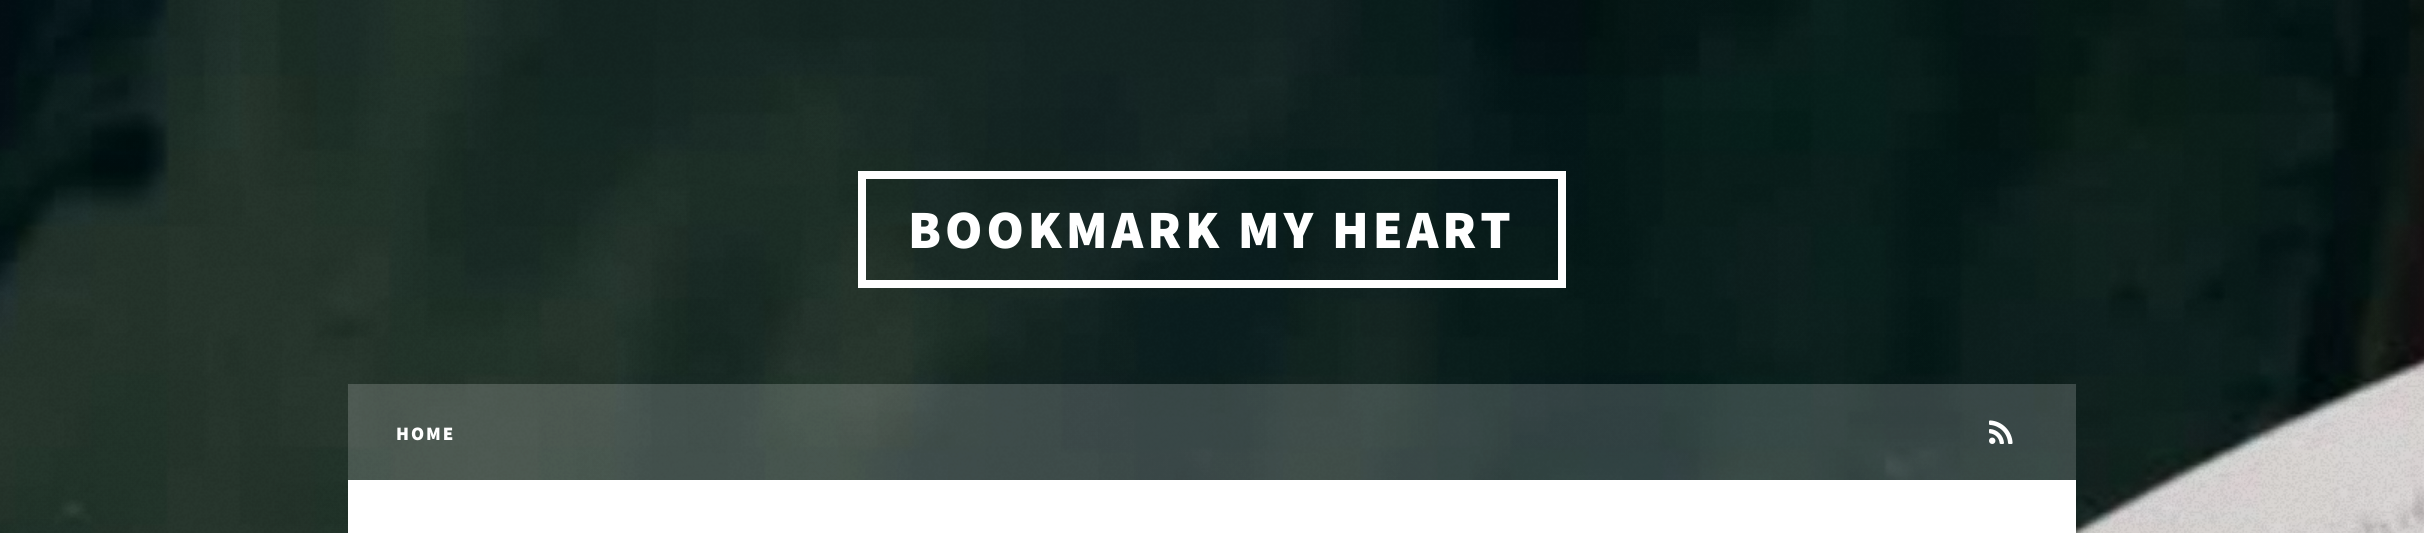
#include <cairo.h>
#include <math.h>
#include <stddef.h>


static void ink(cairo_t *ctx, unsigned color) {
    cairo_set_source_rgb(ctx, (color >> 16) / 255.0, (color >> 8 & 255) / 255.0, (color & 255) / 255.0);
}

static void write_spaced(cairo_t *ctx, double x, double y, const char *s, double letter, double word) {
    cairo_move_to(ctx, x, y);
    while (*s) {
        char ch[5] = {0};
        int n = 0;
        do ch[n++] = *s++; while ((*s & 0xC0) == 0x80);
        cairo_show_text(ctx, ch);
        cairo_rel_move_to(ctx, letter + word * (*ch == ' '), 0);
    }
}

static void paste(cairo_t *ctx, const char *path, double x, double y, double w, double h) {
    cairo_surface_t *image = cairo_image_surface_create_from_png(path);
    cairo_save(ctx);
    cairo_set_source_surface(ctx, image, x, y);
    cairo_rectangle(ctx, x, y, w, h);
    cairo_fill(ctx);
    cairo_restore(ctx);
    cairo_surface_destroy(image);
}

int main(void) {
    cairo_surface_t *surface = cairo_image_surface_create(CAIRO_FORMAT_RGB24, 2424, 533);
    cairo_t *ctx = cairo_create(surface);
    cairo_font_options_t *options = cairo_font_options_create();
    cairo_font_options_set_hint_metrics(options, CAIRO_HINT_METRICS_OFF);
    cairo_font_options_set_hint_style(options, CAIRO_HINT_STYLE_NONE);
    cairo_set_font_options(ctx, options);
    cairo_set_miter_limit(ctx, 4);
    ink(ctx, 0xFFFFFF);
    cairo_paint(ctx);
    paste(ctx, "media/1.png", 0, 0, 2424, 533);
    cairo_rectangle(ctx, 862, 175, 700, 109);
    ink(ctx, 0xFFFFFF);
    cairo_set_line_width(ctx, 8);
    cairo_stroke(ctx);
    cairo_select_font_face(ctx, "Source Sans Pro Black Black", CAIRO_FONT_SLANT_NORMAL, CAIRO_FONT_WEIGHT_NORMAL);
    cairo_set_font_size(ctx, 54);
    write_spaced(ctx, 908, 248, "BOOKMARK MY HEART", 4, 0);
    cairo_set_source_rgba(ctx, 1, 1, 1, 0.18);
    cairo_rectangle(ctx, 348, 384, 1728, 96);
    cairo_fill(ctx);
    cairo_set_font_size(ctx, 19);
    ink(ctx, 0xFFFFFF);
    write_spaced(ctx, 396, 440, "HOME", 2, 0);
    paste(ctx, "media/2.png", 1989, 420, 24, 24);
    cairo_rectangle(ctx, 348, 480, 1728, 53);
    cairo_fill(ctx);
    cairo_surface_write_to_png(surface, "image.png");
    cairo_font_options_destroy(options);
    cairo_destroy(ctx);
    cairo_surface_destroy(surface);
    return 0;
}
